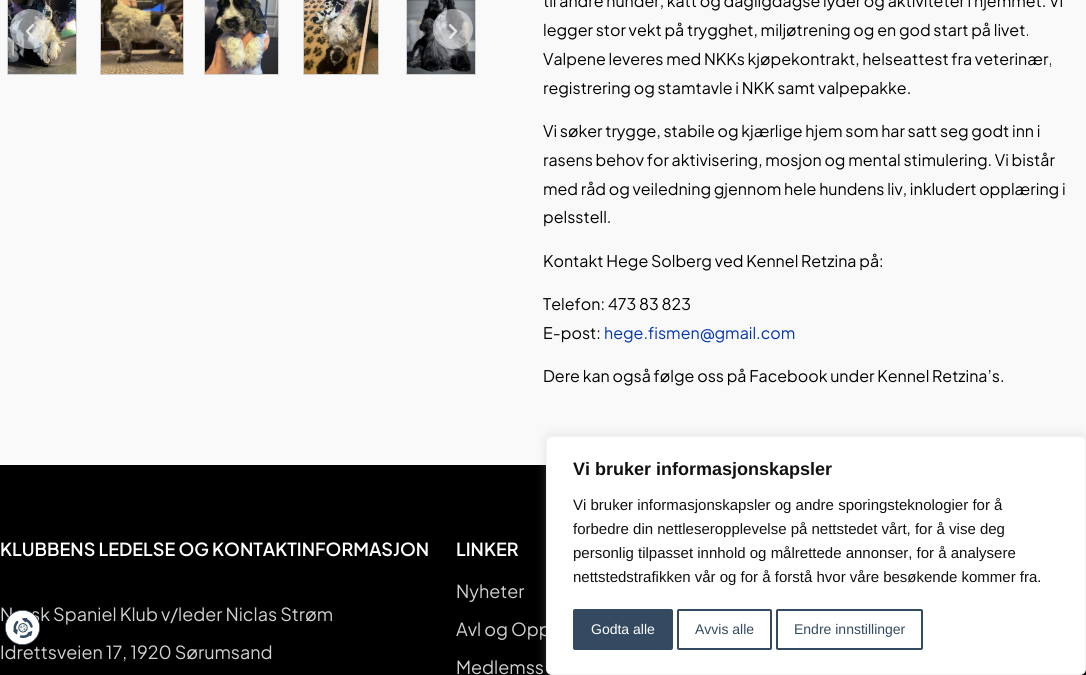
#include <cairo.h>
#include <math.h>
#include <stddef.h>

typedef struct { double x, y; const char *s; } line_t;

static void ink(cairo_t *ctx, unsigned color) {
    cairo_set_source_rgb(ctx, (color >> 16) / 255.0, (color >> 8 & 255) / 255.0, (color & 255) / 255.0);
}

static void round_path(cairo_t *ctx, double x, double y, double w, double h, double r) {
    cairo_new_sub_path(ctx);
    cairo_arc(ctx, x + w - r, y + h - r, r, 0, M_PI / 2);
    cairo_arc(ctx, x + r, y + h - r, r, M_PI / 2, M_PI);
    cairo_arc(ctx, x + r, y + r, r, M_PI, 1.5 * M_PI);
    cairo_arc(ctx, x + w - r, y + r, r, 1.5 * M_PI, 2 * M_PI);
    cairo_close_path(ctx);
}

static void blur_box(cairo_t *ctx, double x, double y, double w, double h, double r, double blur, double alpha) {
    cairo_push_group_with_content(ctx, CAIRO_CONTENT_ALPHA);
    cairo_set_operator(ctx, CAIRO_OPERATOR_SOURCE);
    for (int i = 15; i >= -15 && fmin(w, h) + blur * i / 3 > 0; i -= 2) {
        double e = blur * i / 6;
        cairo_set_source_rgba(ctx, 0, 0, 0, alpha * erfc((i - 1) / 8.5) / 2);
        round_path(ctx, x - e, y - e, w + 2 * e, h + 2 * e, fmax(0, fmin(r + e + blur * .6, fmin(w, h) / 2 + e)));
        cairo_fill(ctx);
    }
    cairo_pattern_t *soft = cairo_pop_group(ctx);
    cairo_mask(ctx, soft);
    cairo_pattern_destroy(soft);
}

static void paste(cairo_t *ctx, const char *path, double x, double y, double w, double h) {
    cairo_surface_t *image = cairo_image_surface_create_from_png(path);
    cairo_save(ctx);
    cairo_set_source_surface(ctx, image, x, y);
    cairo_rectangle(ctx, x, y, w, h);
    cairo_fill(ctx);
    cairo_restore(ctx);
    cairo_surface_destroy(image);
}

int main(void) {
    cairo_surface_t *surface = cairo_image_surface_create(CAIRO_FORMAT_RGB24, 1086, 675);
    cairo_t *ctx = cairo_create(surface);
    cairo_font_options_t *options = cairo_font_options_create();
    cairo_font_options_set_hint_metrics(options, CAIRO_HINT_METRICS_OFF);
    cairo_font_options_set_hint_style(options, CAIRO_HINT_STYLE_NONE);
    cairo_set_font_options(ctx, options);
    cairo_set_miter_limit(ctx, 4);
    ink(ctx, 0xF9F9F9);
    cairo_paint(ctx);
    cairo_rectangle(ctx, 7.5, -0.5, 69, 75);
    ink(ctx, 0xD2D2D2);
    cairo_set_line_width(ctx, 1);
    cairo_stroke(ctx);
    paste(ctx, "media/1.png", 8, 0, 68, 74);
    cairo_rectangle(ctx, 100.5, -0.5, 83, 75);
    cairo_stroke(ctx);
    paste(ctx, "media/2.png", 101, 0, 82, 74);
    cairo_rectangle(ctx, 204.5, -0.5, 74, 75);
    cairo_stroke(ctx);
    paste(ctx, "media/3.png", 205, 0, 73, 74);
    cairo_rectangle(ctx, 303.5, -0.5, 75, 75);
    cairo_stroke(ctx);
    paste(ctx, "media/4.png", 304, 0, 74, 74);
    cairo_rectangle(ctx, 406.5, -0.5, 69, 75);
    cairo_stroke(ctx);
    paste(ctx, "media/5.png", 407, 0, 68, 74);
    cairo_set_source_rgba(ctx, 1, 1, 1, 0.5);
    cairo_arc(ctx, 30, 29, 20, 0, 2 * M_PI);
    cairo_fill(ctx);
    paste(ctx, "media/6.png", 25, 24, 10, 15);
    cairo_arc(ctx, 453, 29, 20, 0, 2 * M_PI);
    cairo_fill(ctx);
    paste(ctx, "media/7.png", 448, 24, 10, 15);
    cairo_select_font_face(ctx, "Plus Jakarta Sans", CAIRO_FONT_SLANT_NORMAL, CAIRO_FONT_WEIGHT_NORMAL);
    cairo_set_font_size(ctx, 16);
    ink(ctx, 0x000000);
    {
        static const line_t items[] = {
            {543, 7, "til andre hunder, katt og dagligdagse lyder og aktiviteter i hjemmet. Vi"},
            {543, 36, "legger stor vekt på trygghet, miljøtrening og en god start på livet."},
            {543, 65, "Valpene leveres med NKKs kjøpekontrakt, helseattest fra veterinær,"},
            {543, 94, "registrering og stamtavle i NKK samt valpepakke."},
            {543, 137, "Vi søker trygge, stabile og kjærlige hjem som har satt seg godt inn i"},
            {543, 166, "rasens behov for aktivisering, mosjon og mental stimulering. Vi bistår"},
            {543, 195, "med råd og veiledning gjennom hele hundens liv, inkludert opplæring i"},
            {543, 223, "pelsstell."},
            {543, 267, "Kontakt Hege Solberg ved Kennel Retzina på:"},
            {543, 310, "Telefon: 473 83 823"},
            {543, 339, "E-post:"},
        };
        for (size_t i = 0; i < sizeof items / sizeof *items; i++) {
            cairo_move_to(ctx, items[i].x, items[i].y);
            cairo_show_text(ctx, items[i].s);
        }
    }
    ink(ctx, 0x0134AF);
    cairo_move_to(ctx, 604, 339);
    cairo_show_text(ctx, "hege.fismen@gmail.com");
    ink(ctx, 0x000000);
    cairo_move_to(ctx, 543, 382);
    cairo_show_text(ctx, "Dere kan også følge oss på Facebook under Kennel Retzina’s.");
    cairo_rectangle(ctx, 0, 465, 1086, 210);
    cairo_fill(ctx);
    cairo_select_font_face(ctx, "Plus Jakarta Sans SemiBold", CAIRO_FONT_SLANT_NORMAL, CAIRO_FONT_WEIGHT_NORMAL);
    cairo_set_font_size(ctx, 18);
    ink(ctx, 0xFFFFFF);
    cairo_move_to(ctx, 0, 556);
    cairo_show_text(ctx, "KLUBBENS LEDELSE OG KONTAKTINFORMASJON");
    cairo_select_font_face(ctx, "Plus Jakarta Sans", CAIRO_FONT_SLANT_NORMAL, CAIRO_FONT_WEIGHT_NORMAL);
    ink(ctx, 0xD0D0D0);
    {
        static const line_t items[] = {
            {0, 621, "N"},
            {31, 621, "sk Spaniel Klub v/leder Niclas Strøm"},
            {0, 659, "Idrettsveien 17, 1920 Sørumsand"},
        };
        for (size_t i = 0; i < sizeof items / sizeof *items; i++) {
            cairo_move_to(ctx, items[i].x, items[i].y);
            cairo_show_text(ctx, items[i].s);
        }
    }
    cairo_select_font_face(ctx, "Plus Jakarta Sans SemiBold", CAIRO_FONT_SLANT_NORMAL, CAIRO_FONT_WEIGHT_NORMAL);
    ink(ctx, 0xFFFFFF);
    cairo_move_to(ctx, 456, 556);
    cairo_show_text(ctx, "LINKER");
    cairo_select_font_face(ctx, "Plus Jakarta Sans", CAIRO_FONT_SLANT_NORMAL, CAIRO_FONT_WEIGHT_NORMAL);
    ink(ctx, 0xD0D0D0);
    {
        static const line_t items[] = {
            {456, 598, "Nyheter"},
            {456, 636, "Avl og Opp"},
            {456, 674, "Medlemss"},
        };
        for (size_t i = 0; i < sizeof items / sizeof *items; i++) {
            cairo_move_to(ctx, items[i].x, items[i].y);
            cairo_show_text(ctx, items[i].s);
        }
    }
    ink(ctx, 0xACABAB);
    blur_box(ctx, 546, 435, 540, 239, 6, 5, 0.3);
    ink(ctx, 0xFFFFFF);
    round_path(ctx, 546.5, 436.5, 539, 238, 5.5);
    cairo_fill_preserve(ctx);
    ink(ctx, 0xF4F4F4);
    cairo_stroke(ctx);
    cairo_select_font_face(ctx, "Liberation Sans", CAIRO_FONT_SLANT_NORMAL, CAIRO_FONT_WEIGHT_BOLD);
    ink(ctx, 0x111111);
    cairo_move_to(ctx, 573, 475);
    cairo_show_text(ctx, "Vi bruker informasjonskapsler");
    cairo_select_font_face(ctx, "Liberation Sans", CAIRO_FONT_SLANT_NORMAL, CAIRO_FONT_WEIGHT_NORMAL);
    cairo_set_font_size(ctx, 15);
    {
        static const line_t items[] = {
            {573, 510, "Vi bruker informasjonskapsler og andre sporingsteknologier for å"},
            {573, 534, "forbedre din nettleseropplevelse på nettstedet vårt, for å vise deg"},
            {573, 558, "personlig tilpasset innhold og målrettede annonser, for å analysere"},
            {573, 582, "nettstedstrafikken vår og for å forstå hvor våre besøkende kommer fra."},
        };
        for (size_t i = 0; i < sizeof items / sizeof *items; i++) {
            cairo_move_to(ctx, items[i].x, items[i].y);
            cairo_show_text(ctx, items[i].s);
        }
    }
    ink(ctx, 0x334A60);
    round_path(ctx, 574, 610, 98, 39, 1);
    cairo_fill_preserve(ctx);
    cairo_set_line_width(ctx, 2);
    cairo_stroke(ctx);
    cairo_set_font_size(ctx, 14);
    ink(ctx, 0xFFFFFF);
    cairo_move_to(ctx, 591, 634);
    cairo_show_text(ctx, "Godta alle");
    round_path(ctx, 678, 610, 93, 39, 1);
    ink(ctx, 0x334A60);
    cairo_stroke(ctx);
    cairo_move_to(ctx, 695, 634);
    cairo_show_text(ctx, "Avvis alle");
    round_path(ctx, 777, 610, 145, 39, 1);
    cairo_stroke(ctx);
    cairo_move_to(ctx, 794, 634);
    cairo_show_text(ctx, "Endre innstillinger");
    ink(ctx, 0xFFFFFF);
    cairo_new_path(ctx);
    cairo_arc(ctx, 22.5, 627.5, 17.15, 0, 2 * M_PI);
    cairo_fill_preserve(ctx);
    ink(ctx, 0x334A60);
    cairo_set_line_width(ctx, 0.7);
    cairo_stroke(ctx);
    paste(ctx, "media/8.png", 13, 618, 20, 20);
    cairo_surface_write_to_png(surface, "image.png");
    cairo_font_options_destroy(options);
    cairo_destroy(ctx);
    cairo_surface_destroy(surface);
    return 0;
}
